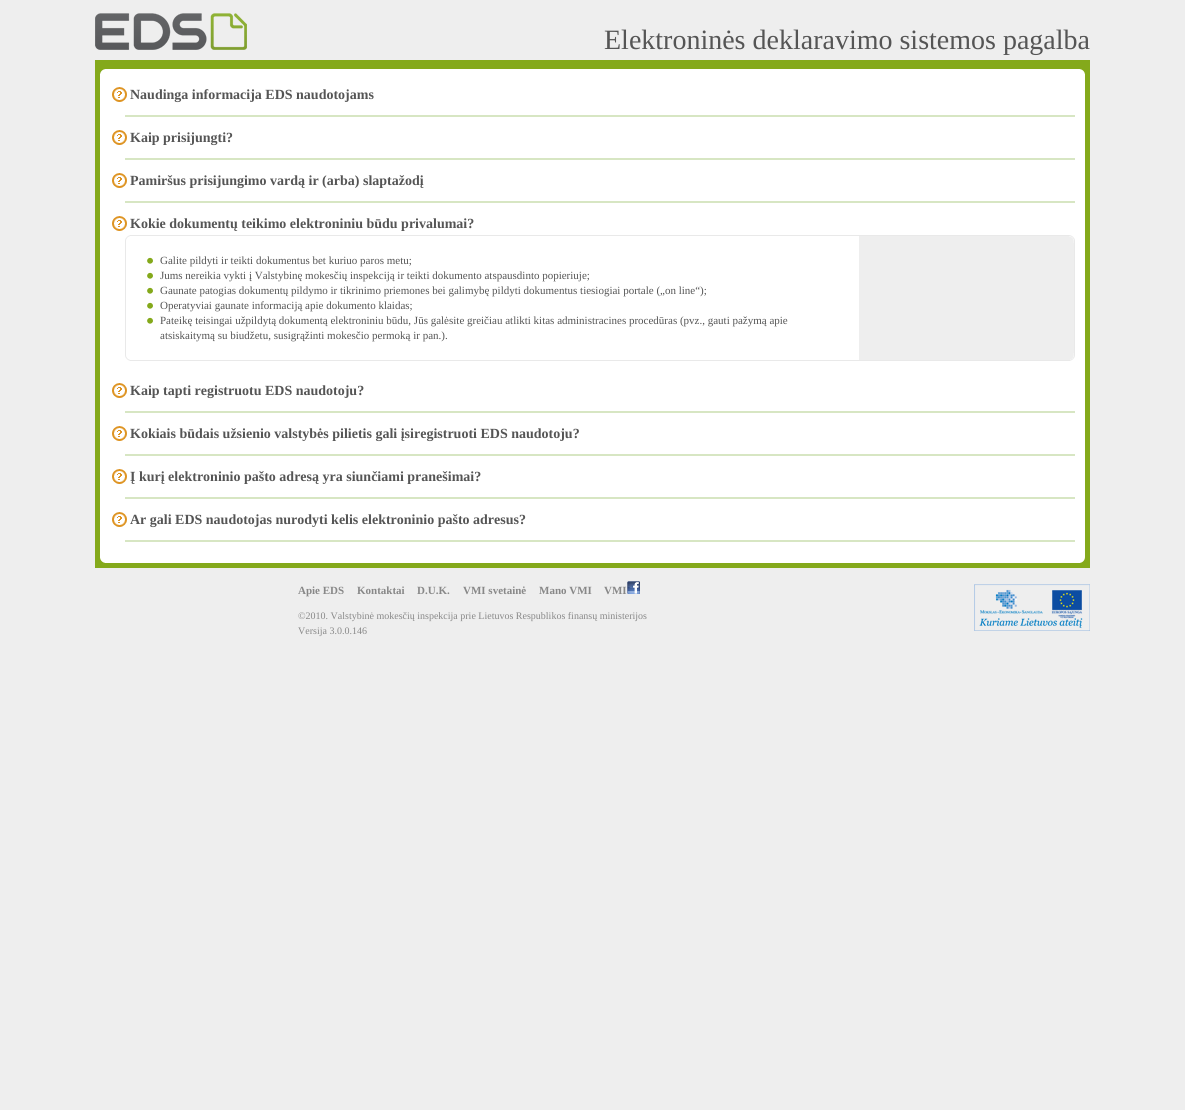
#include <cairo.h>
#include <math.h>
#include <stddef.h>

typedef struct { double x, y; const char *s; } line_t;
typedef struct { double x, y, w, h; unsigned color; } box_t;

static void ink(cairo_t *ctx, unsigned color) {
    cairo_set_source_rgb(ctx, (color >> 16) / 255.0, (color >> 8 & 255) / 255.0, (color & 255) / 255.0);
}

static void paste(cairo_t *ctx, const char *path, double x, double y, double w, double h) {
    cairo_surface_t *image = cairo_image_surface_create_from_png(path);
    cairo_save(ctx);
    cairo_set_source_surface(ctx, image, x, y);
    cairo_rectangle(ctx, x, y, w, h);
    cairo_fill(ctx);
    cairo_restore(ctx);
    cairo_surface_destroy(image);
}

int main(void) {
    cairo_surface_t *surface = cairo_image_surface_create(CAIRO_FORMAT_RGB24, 1185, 1110);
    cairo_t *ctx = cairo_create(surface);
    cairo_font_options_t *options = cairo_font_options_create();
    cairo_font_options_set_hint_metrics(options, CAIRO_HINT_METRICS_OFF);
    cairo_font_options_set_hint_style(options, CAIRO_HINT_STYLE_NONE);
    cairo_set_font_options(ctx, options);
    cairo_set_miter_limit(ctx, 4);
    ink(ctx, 0xEEEEEE);
    cairo_paint(ctx);
    paste(ctx, "media/1.png", 95, 13, 152, 37);
    cairo_select_font_face(ctx, "Liberation Serif", CAIRO_FONT_SLANT_NORMAL, CAIRO_FONT_WEIGHT_NORMAL);
    cairo_set_font_size(ctx, 28);
    ink(ctx, 0x555555);
    cairo_move_to(ctx, 604, 49);
    cairo_show_text(ctx, "Elektroninės deklaravimo sistemos pagalba");
    {
        static const box_t items[] = {
            {95, 60, 995, 9, 0x84A91B},
            {100, 69, 985, 494, 0xFFFFFF},
            {95, 69, 5, 484, 0x84A91B},
        };
        for (size_t i = 0; i < sizeof items / sizeof *items; i++) {
            ink(ctx, items[i].color);
            cairo_rectangle(ctx, items[i].x, items[i].y, items[i].w, items[i].h);
            cairo_fill(ctx);
        }
    }
    paste(ctx, "media/2.png", 100, 69, 6, 5);
    paste(ctx, "media/3.png", 1079, 69, 6, 5);
    ink(ctx, 0xD7E6C3);
    cairo_rectangle(ctx, 125, 115, 950, 2);
    cairo_fill(ctx);
    paste(ctx, "media/4.png", 112, 87, 15, 15);
    cairo_select_font_face(ctx, "Liberation Serif", CAIRO_FONT_SLANT_NORMAL, CAIRO_FONT_WEIGHT_BOLD);
    cairo_set_font_size(ctx, 14);
    ink(ctx, 0x555555);
    cairo_move_to(ctx, 130, 99);
    cairo_show_text(ctx, "Naudinga informacija EDS naudotojams");
    ink(ctx, 0xD7E6C3);
    cairo_rectangle(ctx, 125, 158, 950, 2);
    cairo_fill(ctx);
    paste(ctx, "media/4.png", 112, 130, 15, 15);
    ink(ctx, 0x555555);
    cairo_move_to(ctx, 130, 142);
    cairo_show_text(ctx, "Kaip prisijungti?");
    ink(ctx, 0xD7E6C3);
    cairo_rectangle(ctx, 125, 201, 950, 2);
    cairo_fill(ctx);
    paste(ctx, "media/4.png", 112, 173, 15, 15);
    ink(ctx, 0x555555);
    cairo_move_to(ctx, 130, 185);
    cairo_show_text(ctx, "Pamiršus prisijungimo vardą ir (arba) slaptažodį");
    paste(ctx, "media/4.png", 112, 216, 15, 15);
    cairo_move_to(ctx, 130, 228);
    cairo_show_text(ctx, "Kokie dokumentų teikimo elektroniniu būdu privalumai?");
    ink(ctx, 0xEEEEEE);
    cairo_rectangle(ctx, 859, 236, 215, 124);
    cairo_fill(ctx);
    ink(ctx, 0xE9E9E9);
    cairo_rectangle(ctx, 125, 235, 950, 1);
    cairo_fill(ctx);
    paste(ctx, "media/5.png", 1069, 235, 6, 8);
    paste(ctx, "media/6.png", 125, 235, 5, 8);
    cairo_rectangle(ctx, 125, 243, 1, 110);
    cairo_fill(ctx);
    cairo_rectangle(ctx, 1074, 243, 1, 110);
    cairo_fill(ctx);
    paste(ctx, "media/7.png", 147, 257, 6, 7);
    cairo_select_font_face(ctx, "Liberation Serif", CAIRO_FONT_SLANT_NORMAL, CAIRO_FONT_WEIGHT_NORMAL);
    cairo_set_font_size(ctx, 11);
    ink(ctx, 0x555555);
    cairo_move_to(ctx, 160, 264);
    cairo_show_text(ctx, "Galite pildyti ir teikti dokumentus bet kuriuo paros metu;");
    paste(ctx, "media/7.png", 147, 272, 6, 7);
    cairo_move_to(ctx, 160, 279);
    cairo_show_text(ctx, "Jums nereikia vykti į Valstybinę mokesčių inspekciją ir teikti dokumento atspausdinto popieriuje;");
    paste(ctx, "media/7.png", 147, 287, 6, 7);
    cairo_move_to(ctx, 160, 294);
    cairo_show_text(ctx, "Gaunate patogias dokumentų pildymo ir tikrinimo priemones bei galimybę pildyti dokumentus tiesiogiai portale („on line“);");
    paste(ctx, "media/7.png", 147, 302, 6, 7);
    cairo_move_to(ctx, 160, 309);
    cairo_show_text(ctx, "Operatyviai gaunate informaciją apie dokumento klaidas;");
    paste(ctx, "media/7.png", 147, 317, 6, 7);
    cairo_move_to(ctx, 160, 324);
    cairo_show_text(ctx, "Pateikę teisingai užpildytą dokumentą elektroniniu būdu, Jūs galėsite greičiau atlikti kitas administracines procedūras (pvz., gauti pažymą apie");
    cairo_move_to(ctx, 160, 339);
    cairo_show_text(ctx, "atsiskaitymą su biudžetu, susigrąžinti mokesčio permoką ir pan.).");
    ink(ctx, 0xE9E9E9);
    cairo_rectangle(ctx, 125, 360, 950, 1);
    cairo_fill(ctx);
    paste(ctx, "media/8.png", 1070, 353, 5, 8);
    paste(ctx, "media/9.png", 125, 353, 5, 8);
    ink(ctx, 0xD7E6C3);
    cairo_rectangle(ctx, 125, 411, 950, 2);
    cairo_fill(ctx);
    paste(ctx, "media/4.png", 112, 383, 15, 15);
    cairo_select_font_face(ctx, "Liberation Serif", CAIRO_FONT_SLANT_NORMAL, CAIRO_FONT_WEIGHT_BOLD);
    cairo_set_font_size(ctx, 14);
    ink(ctx, 0x555555);
    cairo_move_to(ctx, 130, 395);
    cairo_show_text(ctx, "Kaip tapti registruotu EDS naudotoju?");
    ink(ctx, 0xD7E6C3);
    cairo_rectangle(ctx, 125, 454, 950, 2);
    cairo_fill(ctx);
    paste(ctx, "media/4.png", 112, 426, 15, 15);
    ink(ctx, 0x555555);
    cairo_move_to(ctx, 130, 438);
    cairo_show_text(ctx, "Kokiais būdais užsienio valstybės pilietis gali įsiregistruoti EDS naudotoju?");
    ink(ctx, 0xD7E6C3);
    cairo_rectangle(ctx, 125, 497, 950, 2);
    cairo_fill(ctx);
    paste(ctx, "media/4.png", 112, 469, 15, 15);
    ink(ctx, 0x555555);
    cairo_move_to(ctx, 130, 481);
    cairo_show_text(ctx, "Į kurį elektroninio pašto adresą yra siunčiami pranešimai?");
    ink(ctx, 0xD7E6C3);
    cairo_rectangle(ctx, 125, 540, 950, 2);
    cairo_fill(ctx);
    paste(ctx, "media/4.png", 112, 512, 15, 15);
    ink(ctx, 0x555555);
    cairo_move_to(ctx, 130, 524);
    cairo_show_text(ctx, "Ar gali EDS naudotojas nurodyti kelis elektroninio pašto adresus?");
    {
        static const box_t items[] = {
            {1085, 69, 5, 499, 0x84A91B},
            {95, 563, 990, 5, 0x84A91B},
            {95, 553, 5, 15, 0x84A91B},
        };
        for (size_t i = 0; i < sizeof items / sizeof *items; i++) {
            ink(ctx, items[i].color);
            cairo_rectangle(ctx, items[i].x, items[i].y, items[i].w, items[i].h);
            cairo_fill(ctx);
        }
    }
    paste(ctx, "media/10.png", 100, 557, 5, 6);
    paste(ctx, "media/11.png", 1080, 557, 5, 6);
    cairo_set_font_size(ctx, 11);
    ink(ctx, 0x888888);
    {
        static const line_t items[] = {
            {298, 594, "Apie EDS"},
            {357, 594, "Kontaktai"},
            {417, 594, "D.U.K."},
            {463, 594, "VMI svetainė"},
            {539, 594, "Mano VMI"},
            {604, 594, "VMI"},
        };
        for (size_t i = 0; i < sizeof items / sizeof *items; i++) {
            cairo_move_to(ctx, items[i].x, items[i].y);
            cairo_show_text(ctx, items[i].s);
        }
    }
    paste(ctx, "media/12.png", 627, 581, 13, 13);
    cairo_select_font_face(ctx, "Liberation Serif", CAIRO_FONT_SLANT_NORMAL, CAIRO_FONT_WEIGHT_NORMAL);
    cairo_set_font_size(ctx, 10);
    cairo_move_to(ctx, 298, 619);
    cairo_show_text(ctx, "©2010. Valstybinė mokesčių inspekcija prie Lietuvos Respublikos finansų ministerijos");
    cairo_move_to(ctx, 298, 634);
    cairo_show_text(ctx, "Versija 3.0.0.146");
    paste(ctx, "media/13.png", 974, 584, 116, 47);
    cairo_surface_write_to_png(surface, "image.png");
    cairo_font_options_destroy(options);
    cairo_destroy(ctx);
    cairo_surface_destroy(surface);
    return 0;
}
